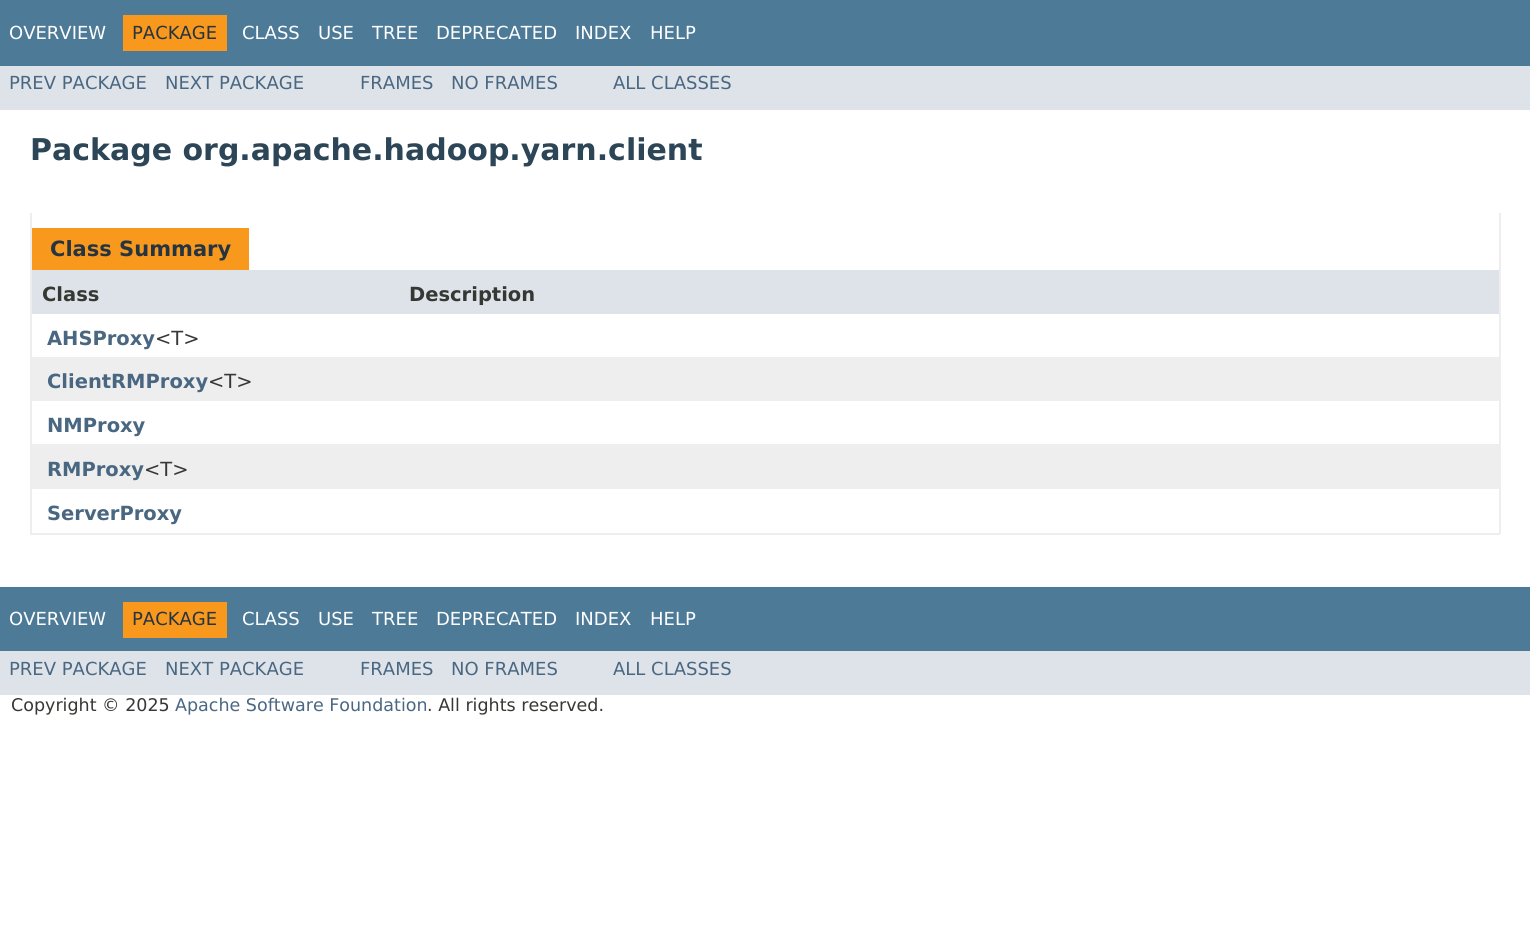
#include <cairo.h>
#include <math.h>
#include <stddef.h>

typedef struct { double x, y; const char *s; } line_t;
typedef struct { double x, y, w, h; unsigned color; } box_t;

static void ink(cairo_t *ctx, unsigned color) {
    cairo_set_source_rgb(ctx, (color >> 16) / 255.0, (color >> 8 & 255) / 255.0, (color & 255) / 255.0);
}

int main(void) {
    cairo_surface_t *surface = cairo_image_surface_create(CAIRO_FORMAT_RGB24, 1530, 947);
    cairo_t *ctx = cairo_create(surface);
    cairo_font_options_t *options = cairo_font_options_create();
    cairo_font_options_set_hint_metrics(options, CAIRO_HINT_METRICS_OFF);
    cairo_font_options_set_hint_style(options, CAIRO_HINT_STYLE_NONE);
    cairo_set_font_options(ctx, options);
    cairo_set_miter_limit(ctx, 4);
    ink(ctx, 0xFFFFFF);
    cairo_paint(ctx);
    ink(ctx, 0x4D7A97);
    cairo_rectangle(ctx, 0, 0, 1530, 66);
    cairo_fill(ctx);
    cairo_select_font_face(ctx, "DejaVu Sans", CAIRO_FONT_SLANT_NORMAL, CAIRO_FONT_WEIGHT_NORMAL);
    cairo_set_font_size(ctx, 18);
    ink(ctx, 0xFFFFFF);
    cairo_move_to(ctx, 9, 39);
    cairo_show_text(ctx, "OVERVIEW");
    ink(ctx, 0xF8981D);
    cairo_rectangle(ctx, 123, 15, 104, 36);
    cairo_fill(ctx);
    ink(ctx, 0x253441);
    cairo_move_to(ctx, 132, 39);
    cairo_show_text(ctx, "PACKAGE");
    ink(ctx, 0xFFFFFF);
    {
        static const line_t items[] = {
            {242, 39, "CLASS"},
            {318, 39, "USE"},
            {372, 39, "TREE"},
            {436, 39, "DEPRECATED"},
            {575, 39, "INDEX"},
            {650, 39, "HELP"},
        };
        for (size_t i = 0; i < sizeof items / sizeof *items; i++) {
            cairo_move_to(ctx, items[i].x, items[i].y);
            cairo_show_text(ctx, items[i].s);
        }
    }
    ink(ctx, 0xDEE3E9);
    cairo_rectangle(ctx, 0, 66, 1530, 44);
    cairo_fill(ctx);
    ink(ctx, 0x4A6782);
    {
        static const line_t items[] = {
            {9, 89, "PREV PACKAGE"},
            {165, 89, "NEXT PACKAGE"},
            {360, 89, "FRAMES"},
            {451, 89, "NO FRAMES"},
            {613, 89, "ALL CLASSES"},
        };
        for (size_t i = 0; i < sizeof items / sizeof *items; i++) {
            cairo_move_to(ctx, items[i].x, items[i].y);
            cairo_show_text(ctx, items[i].s);
        }
    }
    cairo_select_font_face(ctx, "DejaVu Sans", CAIRO_FONT_SLANT_NORMAL, CAIRO_FONT_WEIGHT_BOLD);
    cairo_set_font_size(ctx, 30);
    ink(ctx, 0x2C4557);
    cairo_move_to(ctx, 30, 160);
    cairo_show_text(ctx, "Package org.apache.hadoop.yarn.client");
    {
        static const box_t items[] = {
            {1499, 213, 2, 321, 0xEEEEEE},
            {30, 533, 1470, 2, 0xEEEEEE},
            {30, 213, 2, 321, 0xEEEEEE},
            {32, 228, 217, 42, 0xF8981D},
        };
        for (size_t i = 0; i < sizeof items / sizeof *items; i++) {
            ink(ctx, items[i].color);
            cairo_rectangle(ctx, items[i].x, items[i].y, items[i].w, items[i].h);
            cairo_fill(ctx);
        }
    }
    cairo_set_font_size(ctx, 21);
    ink(ctx, 0x253441);
    cairo_move_to(ctx, 50, 256);
    cairo_show_text(ctx, "Class Summary");
    ink(ctx, 0xDEE3E9);
    cairo_rectangle(ctx, 32, 270, 1467, 44);
    cairo_fill(ctx);
    cairo_set_font_size(ctx, 19.5);
    ink(ctx, 0x353833);
    cairo_move_to(ctx, 42, 301);
    cairo_show_text(ctx, "Class");
    cairo_move_to(ctx, 409, 301);
    cairo_show_text(ctx, "Description");
    ink(ctx, 0x4A6782);
    cairo_move_to(ctx, 47, 345);
    cairo_show_text(ctx, "AHSProxy");
    cairo_select_font_face(ctx, "DejaVu Sans", CAIRO_FONT_SLANT_NORMAL, CAIRO_FONT_WEIGHT_NORMAL);
    ink(ctx, 0x353833);
    cairo_move_to(ctx, 155, 345);
    cairo_show_text(ctx, "<T>");
    ink(ctx, 0xEEEEEF);
    cairo_rectangle(ctx, 32, 357, 1467, 44);
    cairo_fill(ctx);
    cairo_select_font_face(ctx, "DejaVu Sans", CAIRO_FONT_SLANT_NORMAL, CAIRO_FONT_WEIGHT_BOLD);
    ink(ctx, 0x4A6782);
    cairo_move_to(ctx, 47, 388);
    cairo_show_text(ctx, "ClientRMProxy");
    cairo_select_font_face(ctx, "DejaVu Sans", CAIRO_FONT_SLANT_NORMAL, CAIRO_FONT_WEIGHT_NORMAL);
    ink(ctx, 0x353833);
    cairo_move_to(ctx, 208, 388);
    cairo_show_text(ctx, "<T>");
    cairo_select_font_face(ctx, "DejaVu Sans", CAIRO_FONT_SLANT_NORMAL, CAIRO_FONT_WEIGHT_BOLD);
    ink(ctx, 0x4A6782);
    cairo_move_to(ctx, 47, 432);
    cairo_show_text(ctx, "NMProxy");
    ink(ctx, 0xEEEEEF);
    cairo_rectangle(ctx, 32, 444, 1467, 45);
    cairo_fill(ctx);
    ink(ctx, 0x4A6782);
    cairo_move_to(ctx, 47, 476);
    cairo_show_text(ctx, "RMProxy");
    cairo_select_font_face(ctx, "DejaVu Sans", CAIRO_FONT_SLANT_NORMAL, CAIRO_FONT_WEIGHT_NORMAL);
    ink(ctx, 0x353833);
    cairo_move_to(ctx, 144, 476);
    cairo_show_text(ctx, "<T>");
    cairo_select_font_face(ctx, "DejaVu Sans", CAIRO_FONT_SLANT_NORMAL, CAIRO_FONT_WEIGHT_BOLD);
    ink(ctx, 0x4A6782);
    cairo_move_to(ctx, 47, 520);
    cairo_show_text(ctx, "ServerProxy");
    ink(ctx, 0x4D7A97);
    cairo_rectangle(ctx, 0, 587, 1530, 64);
    cairo_fill(ctx);
    cairo_select_font_face(ctx, "DejaVu Sans", CAIRO_FONT_SLANT_NORMAL, CAIRO_FONT_WEIGHT_NORMAL);
    cairo_set_font_size(ctx, 18);
    ink(ctx, 0xFFFFFF);
    cairo_move_to(ctx, 9, 625);
    cairo_show_text(ctx, "OVERVIEW");
    ink(ctx, 0xF8981D);
    cairo_rectangle(ctx, 123, 602, 104, 36);
    cairo_fill(ctx);
    ink(ctx, 0x253441);
    cairo_move_to(ctx, 132, 625);
    cairo_show_text(ctx, "PACKAGE");
    ink(ctx, 0xFFFFFF);
    {
        static const line_t items[] = {
            {242, 625, "CLASS"},
            {318, 625, "USE"},
            {372, 625, "TREE"},
            {436, 625, "DEPRECATED"},
            {575, 625, "INDEX"},
            {650, 625, "HELP"},
        };
        for (size_t i = 0; i < sizeof items / sizeof *items; i++) {
            cairo_move_to(ctx, items[i].x, items[i].y);
            cairo_show_text(ctx, items[i].s);
        }
    }
    ink(ctx, 0xDEE3E9);
    cairo_rectangle(ctx, 0, 651, 1530, 44);
    cairo_fill(ctx);
    ink(ctx, 0x4A6782);
    {
        static const line_t items[] = {
            {9, 675, "PREV PACKAGE"},
            {165, 675, "NEXT PACKAGE"},
            {360, 675, "FRAMES"},
            {451, 675, "NO FRAMES"},
            {613, 675, "ALL CLASSES"},
        };
        for (size_t i = 0; i < sizeof items / sizeof *items; i++) {
            cairo_move_to(ctx, items[i].x, items[i].y);
            cairo_show_text(ctx, items[i].s);
        }
    }
    cairo_set_font_size(ctx, 17.5);
    ink(ctx, 0x353833);
    cairo_move_to(ctx, 11, 711);
    cairo_show_text(ctx, "Copyright © 2025");
    ink(ctx, 0x4A6782);
    cairo_move_to(ctx, 175, 711);
    cairo_show_text(ctx, "Apache Software Foundation");
    ink(ctx, 0x353833);
    cairo_move_to(ctx, 427, 711);
    cairo_show_text(ctx, ". All rights reserved.");
    cairo_surface_write_to_png(surface, "image.png");
    cairo_font_options_destroy(options);
    cairo_destroy(ctx);
    cairo_surface_destroy(surface);
    return 0;
}
